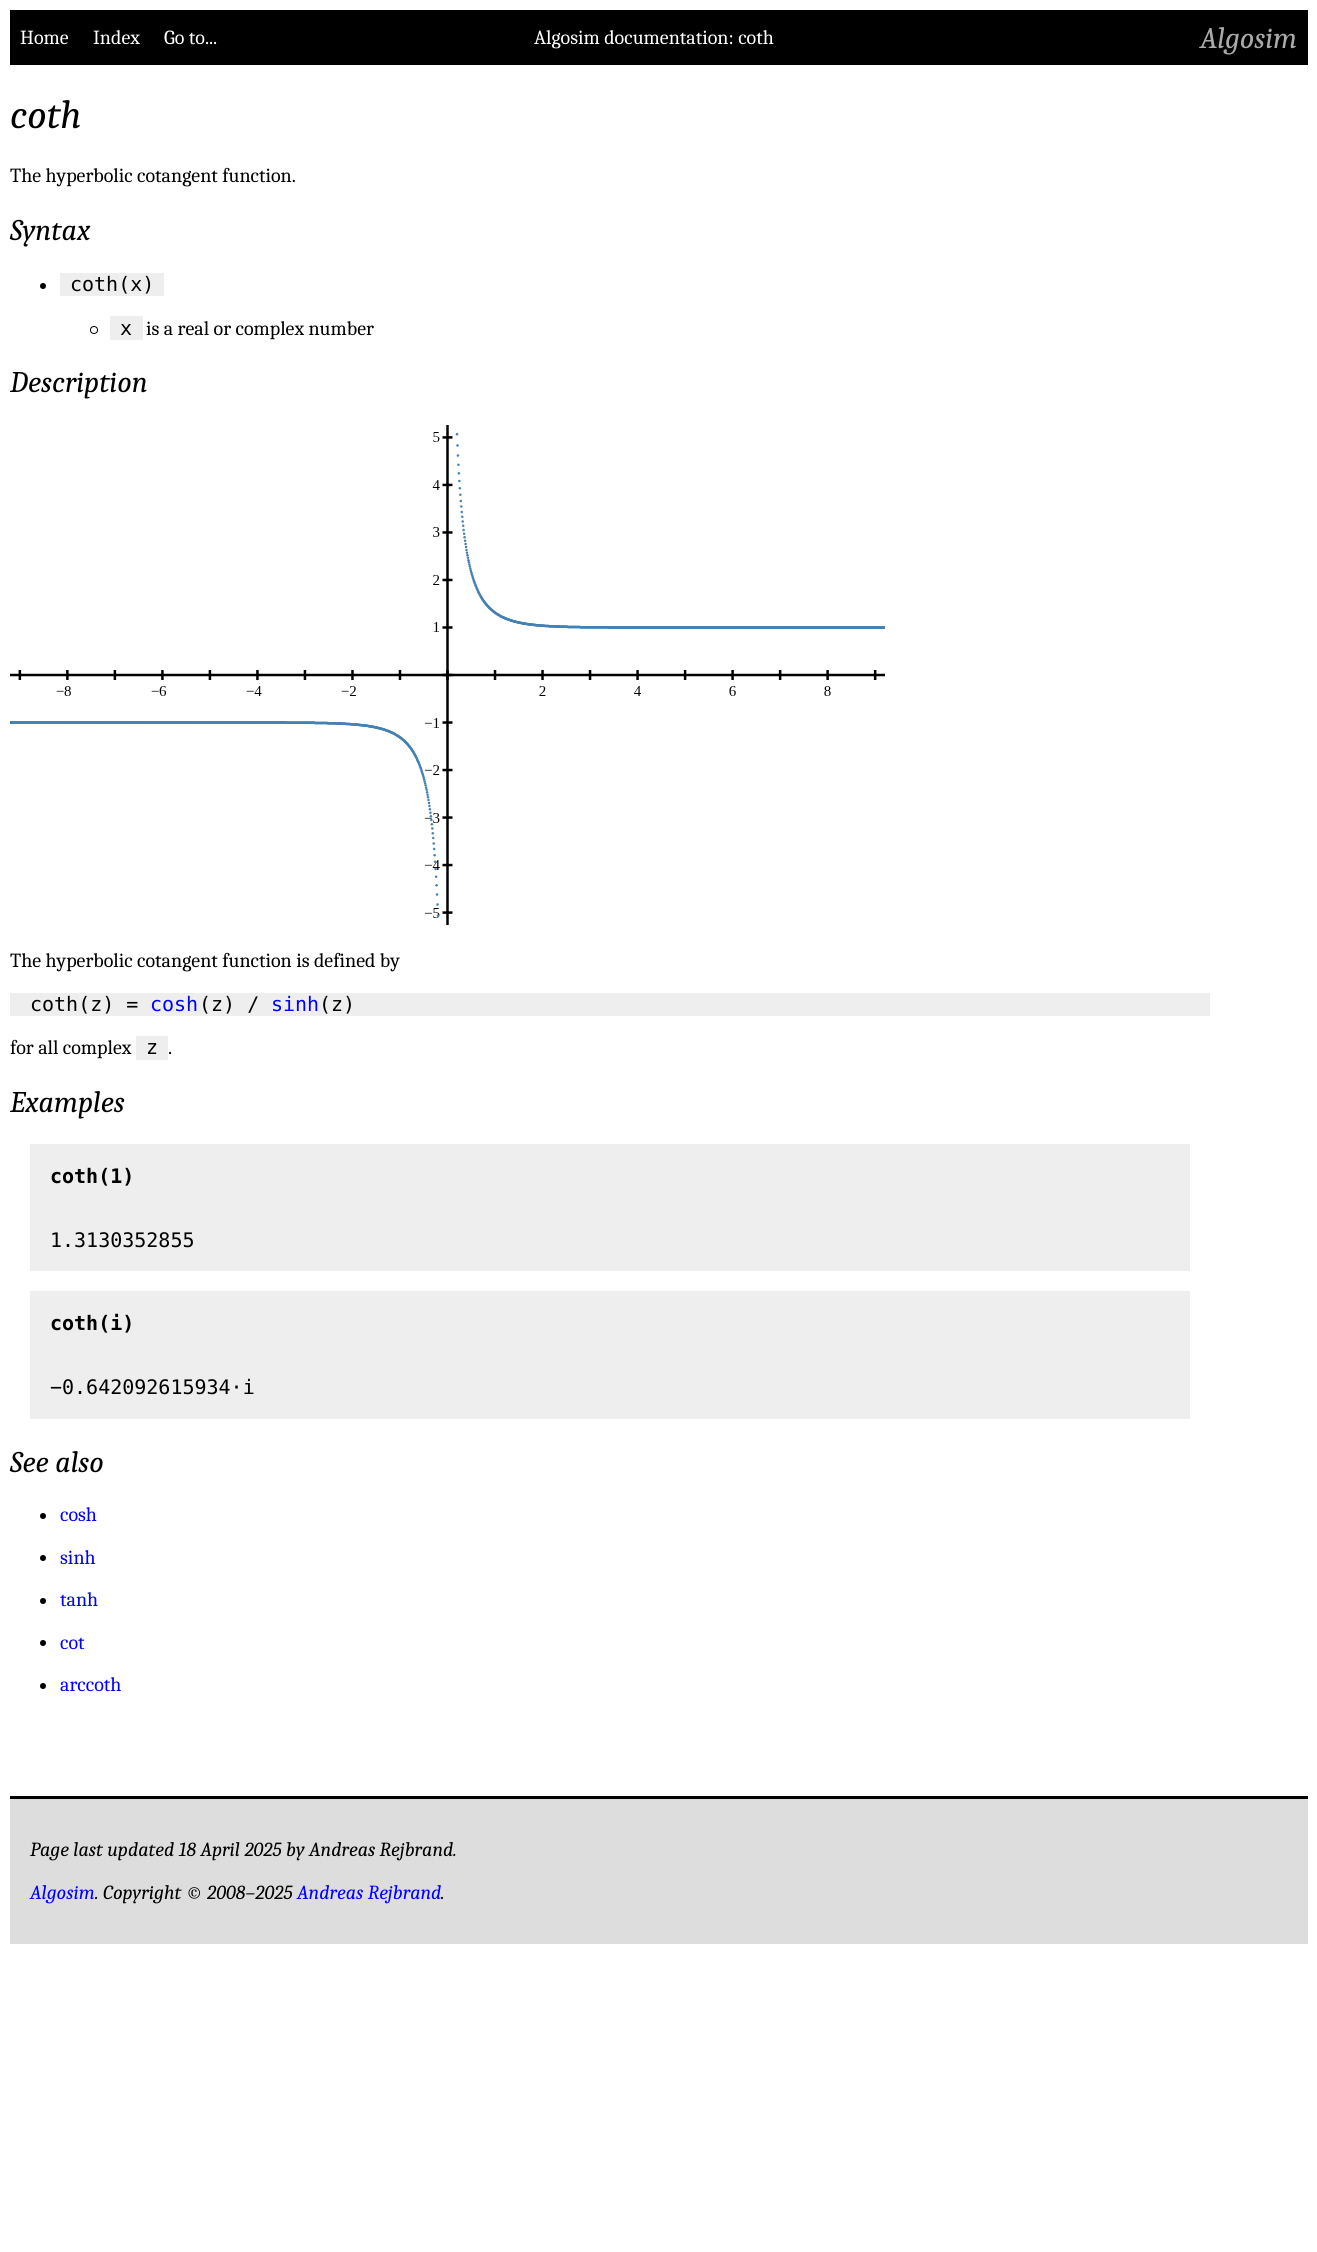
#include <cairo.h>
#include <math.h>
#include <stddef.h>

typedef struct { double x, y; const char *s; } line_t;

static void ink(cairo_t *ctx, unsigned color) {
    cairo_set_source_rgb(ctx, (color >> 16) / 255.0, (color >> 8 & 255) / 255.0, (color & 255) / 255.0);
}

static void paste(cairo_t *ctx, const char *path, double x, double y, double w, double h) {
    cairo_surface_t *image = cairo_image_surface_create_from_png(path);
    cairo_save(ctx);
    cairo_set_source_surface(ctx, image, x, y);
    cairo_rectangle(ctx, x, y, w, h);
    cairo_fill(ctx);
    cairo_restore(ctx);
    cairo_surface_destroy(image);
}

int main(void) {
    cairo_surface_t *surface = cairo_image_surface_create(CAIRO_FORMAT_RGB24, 1317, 2252);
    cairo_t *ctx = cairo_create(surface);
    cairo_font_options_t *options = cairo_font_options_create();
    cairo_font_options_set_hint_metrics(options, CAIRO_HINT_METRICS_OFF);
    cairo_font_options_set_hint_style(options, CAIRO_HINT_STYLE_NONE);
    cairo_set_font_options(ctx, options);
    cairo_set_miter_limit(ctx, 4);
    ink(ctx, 0xFFFFFF);
    cairo_paint(ctx);
    ink(ctx, 0x000000);
    cairo_rectangle(ctx, 10, 10, 1298, 55);
    cairo_fill(ctx);
    cairo_select_font_face(ctx, "Caladea", CAIRO_FONT_SLANT_NORMAL, CAIRO_FONT_WEIGHT_NORMAL);
    cairo_set_font_size(ctx, 20);
    ink(ctx, 0xFFFFFF);
    {
        static const line_t items[] = {
            {20, 44, "Home"},
            {93, 44, "Index"},
            {164, 44, "Go to..."},
            {534, 44, "Algosim documentation: coth"},
        };
        for (size_t i = 0; i < sizeof items / sizeof *items; i++) {
            cairo_move_to(ctx, items[i].x, items[i].y);
            cairo_show_text(ctx, items[i].s);
        }
    }
    cairo_select_font_face(ctx, "Caladea", CAIRO_FONT_SLANT_ITALIC, CAIRO_FONT_WEIGHT_NORMAL);
    cairo_set_font_size(ctx, 30);
    ink(ctx, 0xAAAAAA);
    cairo_move_to(ctx, 1200, 48);
    cairo_show_text(ctx, "Algosim");
    cairo_set_font_size(ctx, 40);
    ink(ctx, 0x000000);
    cairo_move_to(ctx, 10, 128);
    cairo_show_text(ctx, "coth");
    cairo_select_font_face(ctx, "Caladea", CAIRO_FONT_SLANT_NORMAL, CAIRO_FONT_WEIGHT_NORMAL);
    cairo_set_font_size(ctx, 20);
    cairo_move_to(ctx, 10, 182);
    cairo_show_text(ctx, "The hyperbolic cotangent function.");
    cairo_select_font_face(ctx, "Caladea", CAIRO_FONT_SLANT_ITALIC, CAIRO_FONT_WEIGHT_NORMAL);
    cairo_set_font_size(ctx, 30);
    cairo_move_to(ctx, 10, 240);
    cairo_show_text(ctx, "Syntax");
    cairo_new_path(ctx);
    cairo_arc(ctx, 43, 286, 3, 0, 2 * M_PI);
    cairo_fill(ctx);
    ink(ctx, 0xEEEEEE);
    cairo_rectangle(ctx, 60, 273, 104, 23);
    cairo_fill(ctx);
    cairo_select_font_face(ctx, "DejaVu Sans Mono", CAIRO_FONT_SLANT_NORMAL, CAIRO_FONT_WEIGHT_NORMAL);
    cairo_set_font_size(ctx, 20);
    ink(ctx, 0x000000);
    cairo_move_to(ctx, 70, 291);
    cairo_show_text(ctx, "coth(x)");
    cairo_new_path(ctx);
    cairo_arc(ctx, 94, 330, 3.5, 0, 2 * M_PI);
    cairo_set_line_width(ctx, 1);
    cairo_stroke(ctx);
    ink(ctx, 0xEEEEEE);
    cairo_rectangle(ctx, 110, 316, 33, 24);
    cairo_fill(ctx);
    ink(ctx, 0x000000);
    cairo_move_to(ctx, 120, 335);
    cairo_show_text(ctx, "x");
    cairo_select_font_face(ctx, "Caladea", CAIRO_FONT_SLANT_NORMAL, CAIRO_FONT_WEIGHT_NORMAL);
    cairo_move_to(ctx, 146, 335);
    cairo_show_text(ctx, "is a real or complex number");
    cairo_select_font_face(ctx, "Caladea", CAIRO_FONT_SLANT_ITALIC, CAIRO_FONT_WEIGHT_NORMAL);
    cairo_set_font_size(ctx, 30);
    cairo_move_to(ctx, 10, 392);
    cairo_show_text(ctx, "Description");
    paste(ctx, "media/1.png", 10, 425, 875, 500);
    cairo_select_font_face(ctx, "Caladea", CAIRO_FONT_SLANT_NORMAL, CAIRO_FONT_WEIGHT_NORMAL);
    cairo_set_font_size(ctx, 20);
    cairo_move_to(ctx, 10, 967);
    cairo_show_text(ctx, "The hyperbolic cotangent function is defined by");
    ink(ctx, 0xEEEEEE);
    cairo_rectangle(ctx, 10, 993, 1200, 23);
    cairo_fill(ctx);
    cairo_select_font_face(ctx, "DejaVu Sans Mono", CAIRO_FONT_SLANT_NORMAL, CAIRO_FONT_WEIGHT_NORMAL);
    ink(ctx, 0x000000);
    cairo_move_to(ctx, 30, 1011);
    cairo_show_text(ctx, "coth(z) =");
    ink(ctx, 0x0000FF);
    cairo_move_to(ctx, 150, 1011);
    cairo_show_text(ctx, "cosh");
    ink(ctx, 0x000000);
    cairo_move_to(ctx, 199, 1011);
    cairo_show_text(ctx, "(z) /");
    ink(ctx, 0x0000FF);
    cairo_move_to(ctx, 271, 1011);
    cairo_show_text(ctx, "sinh");
    ink(ctx, 0x000000);
    cairo_move_to(ctx, 319, 1011);
    cairo_show_text(ctx, "(z)");
    cairo_select_font_face(ctx, "Caladea", CAIRO_FONT_SLANT_NORMAL, CAIRO_FONT_WEIGHT_NORMAL);
    cairo_move_to(ctx, 10, 1054);
    cairo_show_text(ctx, "for all complex");
    ink(ctx, 0xEEEEEE);
    cairo_rectangle(ctx, 136, 1036, 32, 24);
    cairo_fill(ctx);
    cairo_select_font_face(ctx, "DejaVu Sans Mono", CAIRO_FONT_SLANT_NORMAL, CAIRO_FONT_WEIGHT_NORMAL);
    ink(ctx, 0x000000);
    cairo_move_to(ctx, 146, 1054);
    cairo_show_text(ctx, "z");
    cairo_select_font_face(ctx, "Caladea", CAIRO_FONT_SLANT_NORMAL, CAIRO_FONT_WEIGHT_NORMAL);
    cairo_move_to(ctx, 168, 1054);
    cairo_show_text(ctx, ".");
    cairo_select_font_face(ctx, "Caladea", CAIRO_FONT_SLANT_ITALIC, CAIRO_FONT_WEIGHT_NORMAL);
    cairo_set_font_size(ctx, 30);
    cairo_move_to(ctx, 10, 1112);
    cairo_show_text(ctx, "Examples");
    ink(ctx, 0xEEEEEE);
    cairo_rectangle(ctx, 30, 1144, 1160, 127);
    cairo_fill(ctx);
    cairo_select_font_face(ctx, "DejaVu Sans Mono", CAIRO_FONT_SLANT_NORMAL, CAIRO_FONT_WEIGHT_BOLD);
    cairo_set_font_size(ctx, 20);
    ink(ctx, 0x000000);
    cairo_move_to(ctx, 50, 1183);
    cairo_show_text(ctx, "coth(1)");
    cairo_select_font_face(ctx, "DejaVu Sans Mono", CAIRO_FONT_SLANT_NORMAL, CAIRO_FONT_WEIGHT_NORMAL);
    cairo_move_to(ctx, 50, 1247);
    cairo_show_text(ctx, "1.3130352855");
    ink(ctx, 0xEEEEEE);
    cairo_rectangle(ctx, 30, 1291, 1160, 128);
    cairo_fill(ctx);
    cairo_select_font_face(ctx, "DejaVu Sans Mono", CAIRO_FONT_SLANT_NORMAL, CAIRO_FONT_WEIGHT_BOLD);
    ink(ctx, 0x000000);
    cairo_move_to(ctx, 50, 1330);
    cairo_show_text(ctx, "coth(i)");
    cairo_select_font_face(ctx, "DejaVu Sans Mono", CAIRO_FONT_SLANT_NORMAL, CAIRO_FONT_WEIGHT_NORMAL);
    cairo_move_to(ctx, 50, 1394);
    cairo_show_text(ctx, "−0.642092615934⋅i");
    cairo_select_font_face(ctx, "Caladea", CAIRO_FONT_SLANT_ITALIC, CAIRO_FONT_WEIGHT_NORMAL);
    cairo_set_font_size(ctx, 30);
    cairo_move_to(ctx, 10, 1472);
    cairo_show_text(ctx, "See also");
    cairo_new_path(ctx);
    cairo_arc(ctx, 43, 1516, 3, 0, 2 * M_PI);
    cairo_fill(ctx);
    cairo_select_font_face(ctx, "Caladea", CAIRO_FONT_SLANT_NORMAL, CAIRO_FONT_WEIGHT_NORMAL);
    cairo_set_font_size(ctx, 20);
    ink(ctx, 0x0000FF);
    cairo_move_to(ctx, 60, 1521);
    cairo_show_text(ctx, "cosh");
    ink(ctx, 0x000000);
    cairo_new_path(ctx);
    cairo_arc(ctx, 43, 1558, 3, 0, 2 * M_PI);
    cairo_fill(ctx);
    ink(ctx, 0x0000FF);
    cairo_move_to(ctx, 60, 1564);
    cairo_show_text(ctx, "sinh");
    ink(ctx, 0x000000);
    cairo_new_path(ctx);
    cairo_arc(ctx, 43, 1601, 3, 0, 2 * M_PI);
    cairo_fill(ctx);
    ink(ctx, 0x0000FF);
    cairo_move_to(ctx, 60, 1606);
    cairo_show_text(ctx, "tanh");
    ink(ctx, 0x000000);
    cairo_new_path(ctx);
    cairo_arc(ctx, 43, 1643, 3, 0, 2 * M_PI);
    cairo_fill(ctx);
    ink(ctx, 0x0000FF);
    cairo_move_to(ctx, 60, 1649);
    cairo_show_text(ctx, "cot");
    ink(ctx, 0x000000);
    cairo_new_path(ctx);
    cairo_arc(ctx, 43, 1686, 3, 0, 2 * M_PI);
    cairo_fill(ctx);
    ink(ctx, 0x0000FF);
    cairo_move_to(ctx, 60, 1691);
    cairo_show_text(ctx, "arccoth");
    ink(ctx, 0xDDDDDD);
    cairo_rectangle(ctx, 10, 1799, 1298, 145);
    cairo_fill(ctx);
    ink(ctx, 0x000000);
    cairo_rectangle(ctx, 10, 1796, 1298, 3);
    cairo_fill(ctx);
    cairo_select_font_face(ctx, "Caladea", CAIRO_FONT_SLANT_ITALIC, CAIRO_FONT_WEIGHT_NORMAL);
    cairo_move_to(ctx, 30, 1856);
    cairo_show_text(ctx, "Page last updated 18 April 2025 by Andreas Rejbrand.");
    ink(ctx, 0x0000FF);
    cairo_move_to(ctx, 30, 1899);
    cairo_show_text(ctx, "Algosim");
    ink(ctx, 0x000000);
    cairo_move_to(ctx, 95, 1899);
    cairo_show_text(ctx, ". Copyright © 2008–2025");
    ink(ctx, 0x0000FF);
    cairo_move_to(ctx, 297, 1899);
    cairo_show_text(ctx, "Andreas Rejbrand");
    ink(ctx, 0x000000);
    cairo_move_to(ctx, 441, 1899);
    cairo_show_text(ctx, ".");
    cairo_surface_write_to_png(surface, "image.png");
    cairo_font_options_destroy(options);
    cairo_destroy(ctx);
    cairo_surface_destroy(surface);
    return 0;
}
